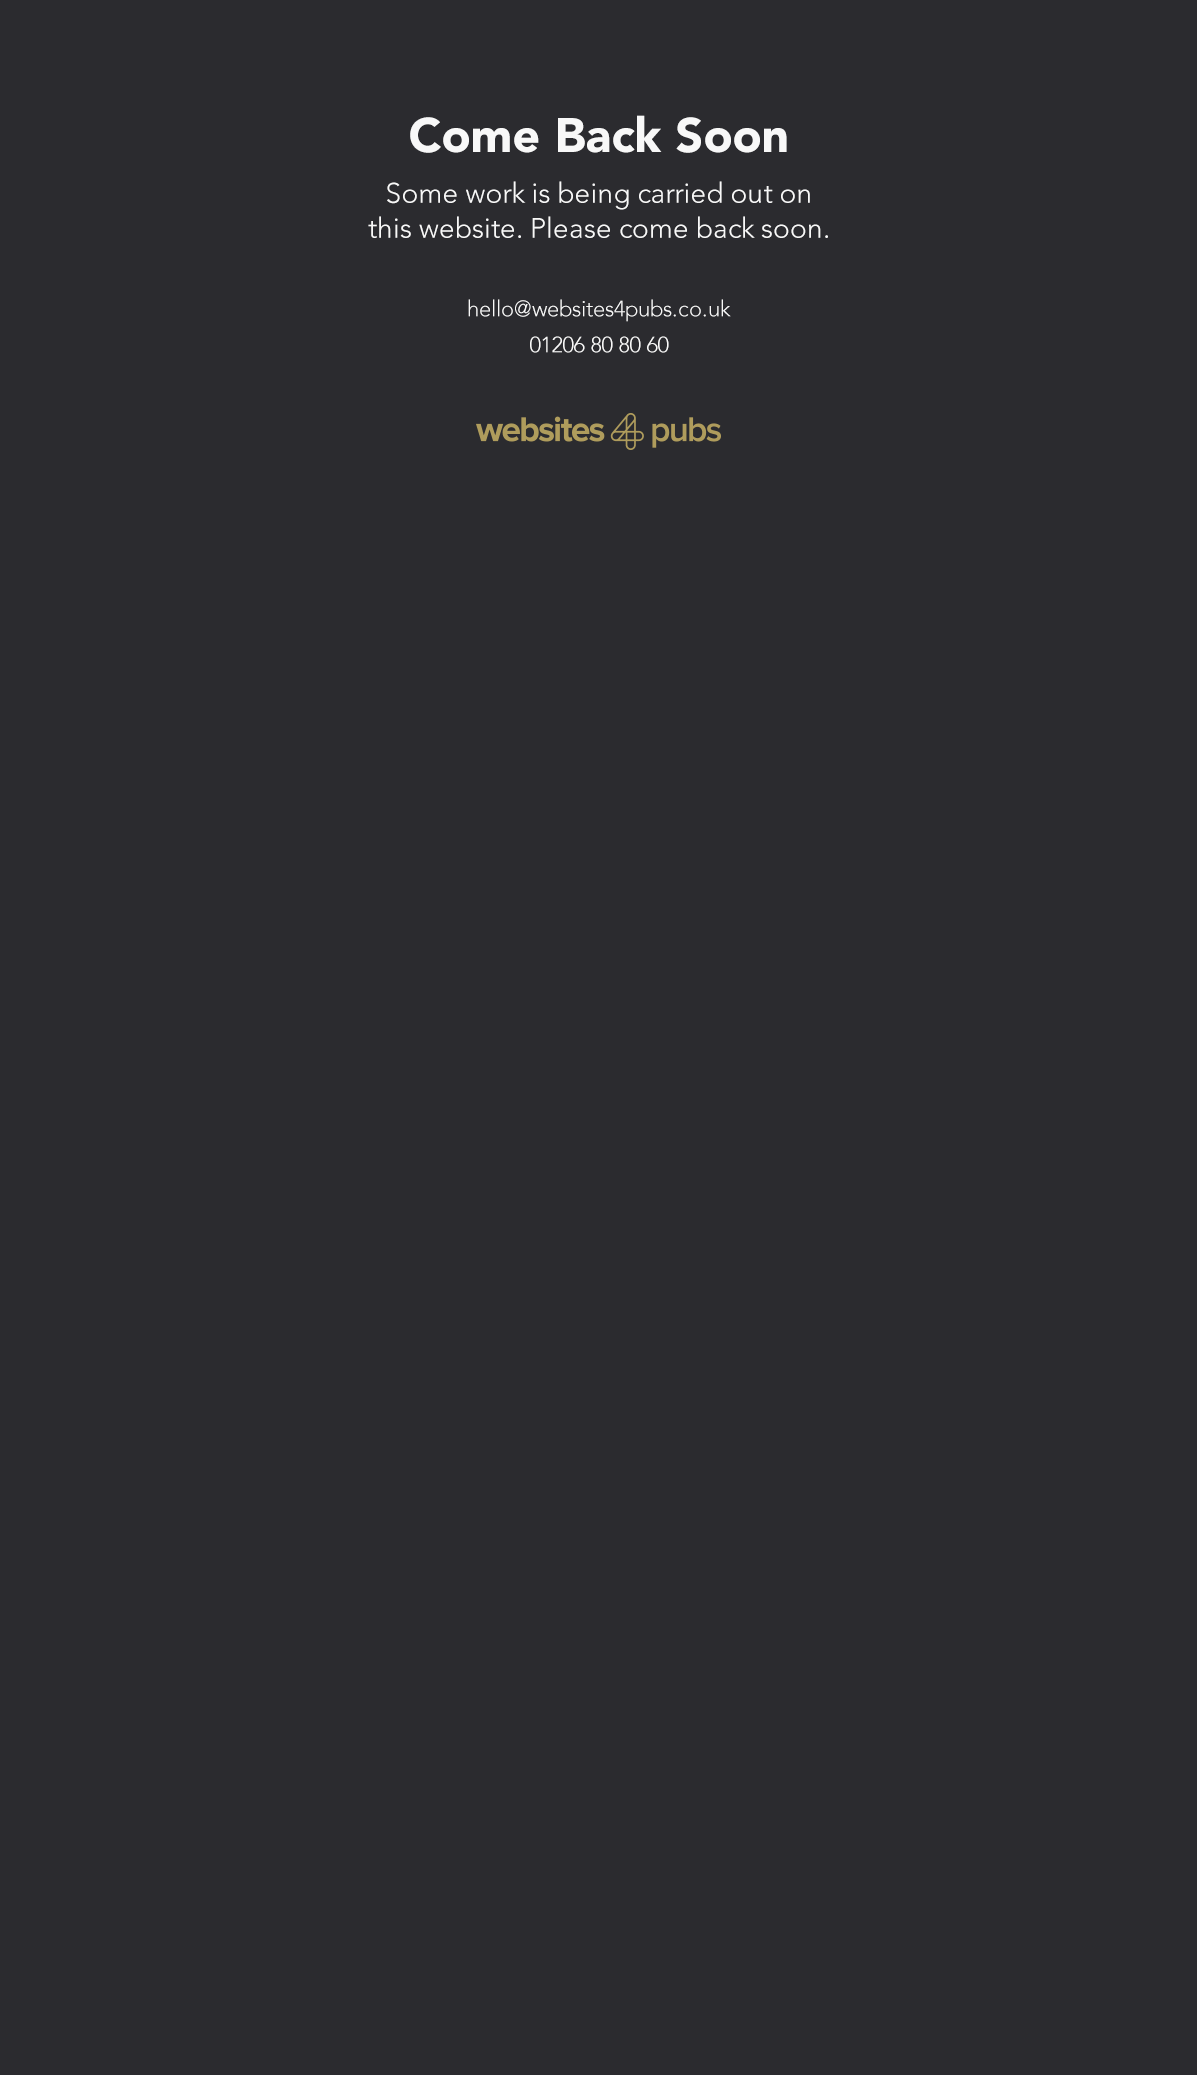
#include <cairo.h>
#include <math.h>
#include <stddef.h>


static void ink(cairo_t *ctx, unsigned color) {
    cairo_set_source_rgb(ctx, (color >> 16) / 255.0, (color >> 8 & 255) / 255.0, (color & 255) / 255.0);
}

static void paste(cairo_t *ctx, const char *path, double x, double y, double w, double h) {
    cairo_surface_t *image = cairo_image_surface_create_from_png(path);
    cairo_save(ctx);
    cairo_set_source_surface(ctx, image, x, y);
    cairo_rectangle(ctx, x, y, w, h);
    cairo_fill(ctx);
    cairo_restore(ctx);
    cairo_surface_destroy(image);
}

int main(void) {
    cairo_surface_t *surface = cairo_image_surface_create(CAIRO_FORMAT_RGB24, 1197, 2075);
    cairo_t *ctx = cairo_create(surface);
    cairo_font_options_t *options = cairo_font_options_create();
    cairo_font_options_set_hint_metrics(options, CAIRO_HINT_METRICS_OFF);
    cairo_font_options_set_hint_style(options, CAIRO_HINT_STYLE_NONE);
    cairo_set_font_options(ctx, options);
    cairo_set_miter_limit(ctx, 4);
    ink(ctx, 0x2B2B2F);
    cairo_paint(ctx);
    paste(ctx, "media/1.png", 368, 115, 460, 335);
    cairo_surface_write_to_png(surface, "image.png");
    cairo_font_options_destroy(options);
    cairo_destroy(ctx);
    cairo_surface_destroy(surface);
    return 0;
}
